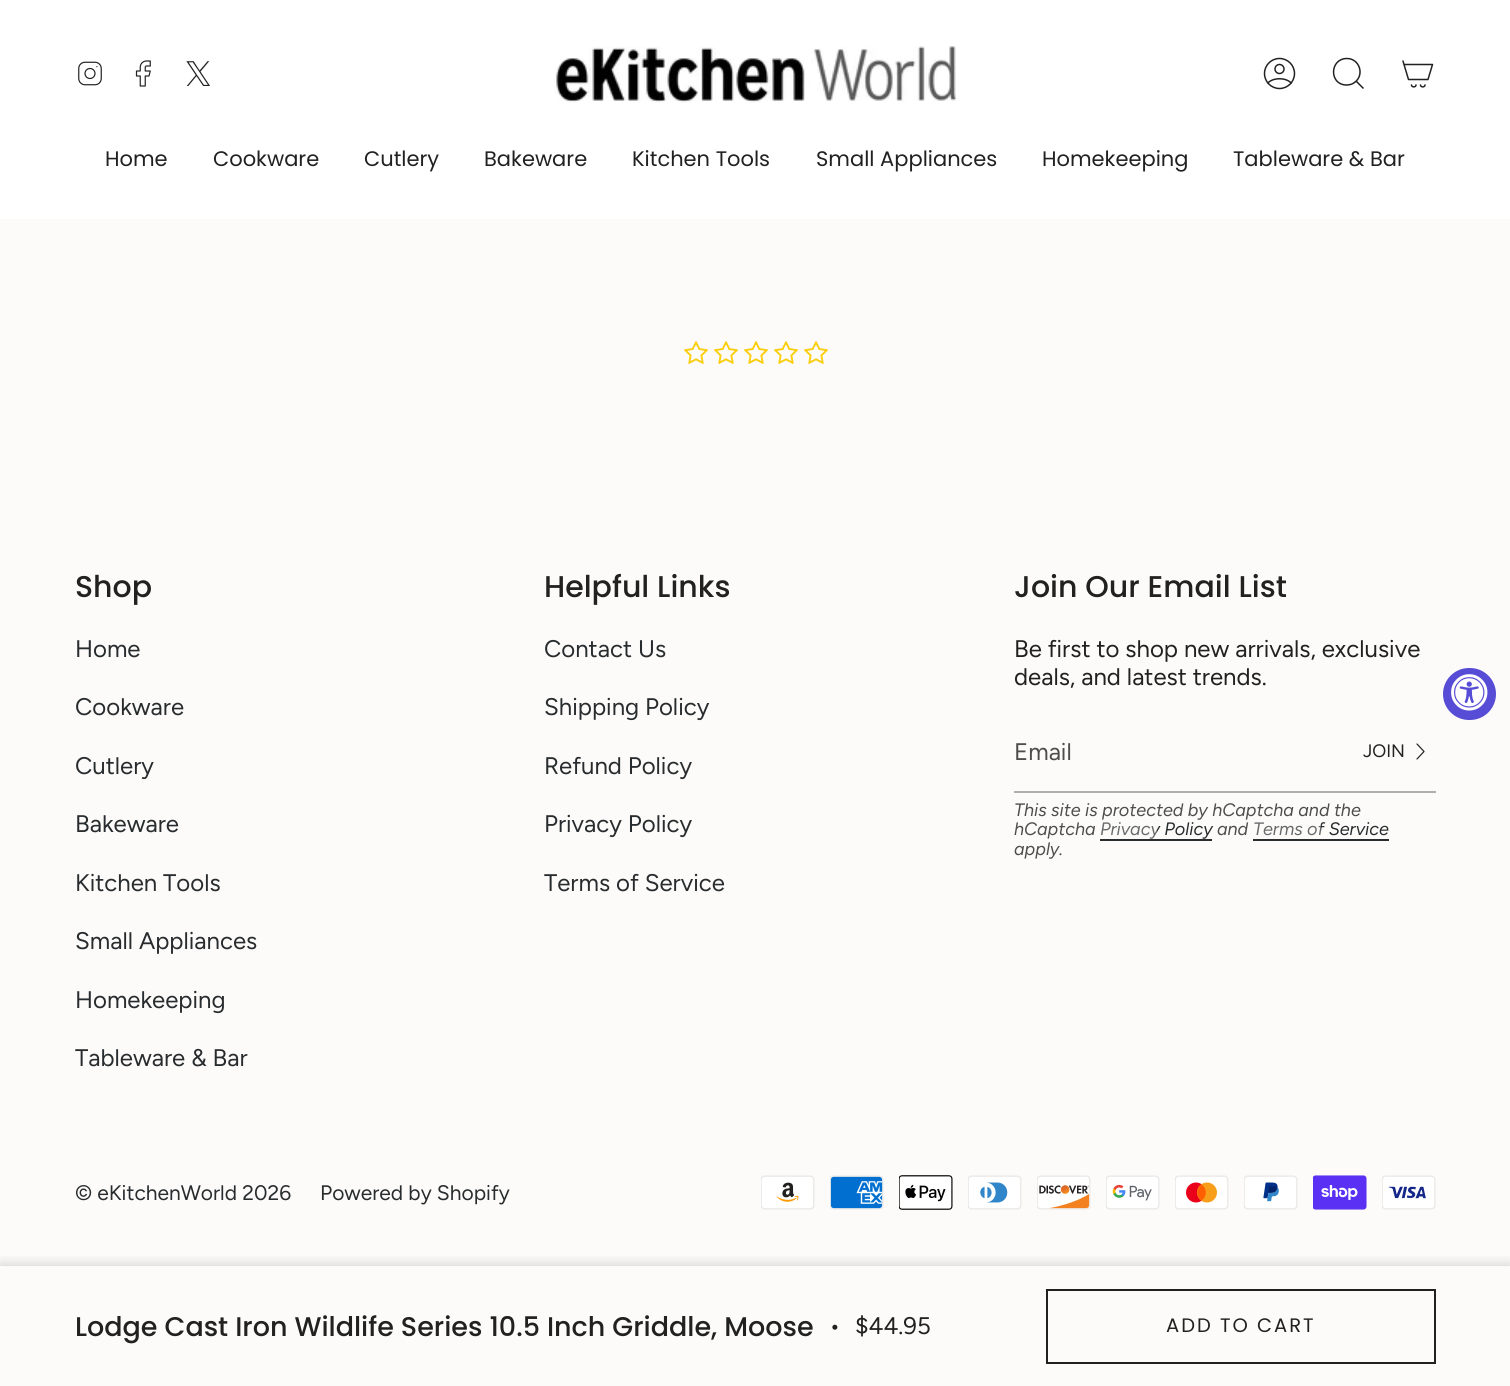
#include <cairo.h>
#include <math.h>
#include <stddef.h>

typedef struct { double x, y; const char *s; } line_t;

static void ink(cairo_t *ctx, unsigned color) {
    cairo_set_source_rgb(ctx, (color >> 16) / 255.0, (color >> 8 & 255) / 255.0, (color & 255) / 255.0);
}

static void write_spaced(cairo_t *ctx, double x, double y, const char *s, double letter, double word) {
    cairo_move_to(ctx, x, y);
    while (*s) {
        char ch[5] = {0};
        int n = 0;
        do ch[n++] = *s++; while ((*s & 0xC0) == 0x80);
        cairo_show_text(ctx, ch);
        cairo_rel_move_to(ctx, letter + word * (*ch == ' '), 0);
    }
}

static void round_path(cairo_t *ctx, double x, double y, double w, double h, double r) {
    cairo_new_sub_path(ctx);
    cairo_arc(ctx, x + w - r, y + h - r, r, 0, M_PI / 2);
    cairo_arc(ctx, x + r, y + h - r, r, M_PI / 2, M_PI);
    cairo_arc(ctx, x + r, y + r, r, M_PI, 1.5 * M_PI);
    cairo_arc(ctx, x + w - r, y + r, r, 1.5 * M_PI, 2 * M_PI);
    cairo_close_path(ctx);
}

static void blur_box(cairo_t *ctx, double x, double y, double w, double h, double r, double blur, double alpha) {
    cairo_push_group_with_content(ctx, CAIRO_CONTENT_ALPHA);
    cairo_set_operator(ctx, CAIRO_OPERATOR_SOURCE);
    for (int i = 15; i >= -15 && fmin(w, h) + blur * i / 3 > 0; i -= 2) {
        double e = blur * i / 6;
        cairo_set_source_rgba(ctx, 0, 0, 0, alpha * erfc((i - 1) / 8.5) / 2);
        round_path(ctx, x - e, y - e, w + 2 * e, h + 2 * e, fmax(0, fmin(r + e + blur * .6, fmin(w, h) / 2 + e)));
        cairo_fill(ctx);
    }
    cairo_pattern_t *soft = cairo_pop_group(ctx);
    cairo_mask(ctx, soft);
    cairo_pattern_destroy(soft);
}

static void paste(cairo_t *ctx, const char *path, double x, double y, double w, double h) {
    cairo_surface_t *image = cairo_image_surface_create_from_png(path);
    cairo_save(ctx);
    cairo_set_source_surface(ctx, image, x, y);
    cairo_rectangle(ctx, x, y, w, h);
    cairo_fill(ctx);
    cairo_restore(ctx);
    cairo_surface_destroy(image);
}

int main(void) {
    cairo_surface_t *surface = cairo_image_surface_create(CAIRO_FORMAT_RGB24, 1510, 1386);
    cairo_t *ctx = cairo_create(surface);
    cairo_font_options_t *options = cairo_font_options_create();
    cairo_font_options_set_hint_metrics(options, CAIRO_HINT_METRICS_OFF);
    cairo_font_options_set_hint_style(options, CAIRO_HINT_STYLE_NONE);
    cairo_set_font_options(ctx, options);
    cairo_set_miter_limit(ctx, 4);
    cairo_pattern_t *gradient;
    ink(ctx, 0xFCFBF9);
    cairo_paint(ctx);
    ink(ctx, 0xFFFFFF);
    cairo_rectangle(ctx, 0, 0, 1510, 219);
    cairo_fill(ctx);
    paste(ctx, "media/1.png", 78, 61, 24, 25);
    paste(ctx, "media/2.png", 135, 60, 16, 27);
    paste(ctx, "media/3.png", 186, 61, 24, 25);
    paste(ctx, "media/4.png", 554, 46, 402, 57);
    paste(ctx, "media/5.png", 1263, 57, 33, 33);
    cairo_new_path(ctx);
    cairo_move_to(ctx, 1347, 58.5);
    cairo_curve_to(ctx, 1359.5, 58.5, 1365, 75, 1354.5, 82.5);
    cairo_curve_to(ctx, 1352, 84.5, 1349, 85, 1346, 85);
    cairo_curve_to(ctx, 1329, 84.5, 1329.5, 58.5, 1347, 58.5);
    cairo_close_path(ctx);
    cairo_move_to(ctx, 1356, 81);
    cairo_line_to(ctx, 1363.5, 88.5);
    ink(ctx, 0x212121);
    cairo_set_line_width(ctx, 1.5);
    cairo_stroke(ctx);
    cairo_new_path(ctx);
    cairo_move_to(ctx, 1404, 64.5);
    cairo_line_to(ctx, 1432.5, 64.5);
    cairo_line_to(ctx, 1428, 79.5);
    cairo_line_to(ctx, 1408.5, 79.5);
    cairo_close_path(ctx);
    cairo_move_to(ctx, 1404, 64.5);
    cairo_line_to(ctx, 1403, 61);
    cairo_move_to(ctx, 1416, 85);
    cairo_curve_to(ctx, 1416, 87.5, 1411.5, 87.5, 1411.5, 85);
    cairo_move_to(ctx, 1425, 85);
    cairo_curve_to(ctx, 1425, 87.5, 1420.5, 87.5, 1420.5, 85);
    cairo_set_line_cap(ctx, CAIRO_LINE_CAP_ROUND);
    cairo_set_line_join(ctx, CAIRO_LINE_JOIN_ROUND);
    cairo_stroke(ctx);
    cairo_select_font_face(ctx, "Poppins", CAIRO_FONT_SLANT_NORMAL, CAIRO_FONT_WEIGHT_NORMAL);
    cairo_set_font_size(ctx, 21);
    {
        static const line_t items[] = {
            {105, 166, "Home"},
            {213, 166, "Cookware"},
            {364, 166, "Cutlery"},
            {484, 166, "Bakeware"},
            {632, 166, "Kitchen Tools"},
            {816, 166, "Small Appliances"},
            {1042, 166, "Homekeeping"},
            {1233, 166, "Tableware & Bar"},
        };
        for (size_t i = 0; i < sizeof items / sizeof *items; i++) {
            cairo_move_to(ctx, items[i].x, items[i].y);
            cairo_show_text(ctx, items[i].s);
        }
    }
    paste(ctx, "media/6.png", 684, 341, 24, 23);
    paste(ctx, "media/6.png", 714, 341, 24, 23);
    paste(ctx, "media/6.png", 744, 341, 24, 23);
    paste(ctx, "media/6.png", 774, 341, 24, 23);
    paste(ctx, "media/6.png", 804, 341, 24, 23);
    cairo_save(ctx);
    cairo_rectangle(ctx, 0, 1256, 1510, 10);
    cairo_clip(ctx);
    ink(ctx, 0x000000);
    blur_box(ctx, 0, 1266, 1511, 120, 0, 7.5, 0.2);
    cairo_restore(ctx);
    cairo_select_font_face(ctx, "Poppins Medium", CAIRO_FONT_SLANT_NORMAL, CAIRO_FONT_WEIGHT_NORMAL);
    cairo_set_font_size(ctx, 27);
    cairo_move_to(ctx, 75, 1336);
    cairo_show_text(ctx, "Lodge Cast Iron Wildlife Series 10.5 Inch Griddle, Moose");
    cairo_select_font_face(ctx, "Figtree", CAIRO_FONT_SLANT_NORMAL, CAIRO_FONT_WEIGHT_NORMAL);
    cairo_set_font_size(ctx, 24);
    cairo_move_to(ctx, 829, 1334);
    cairo_show_text(ctx, "•");
    cairo_move_to(ctx, 855, 1334);
    cairo_show_text(ctx, "$44.95");
    cairo_rectangle(ctx, 1047, 1290, 388, 73);
    cairo_set_line_width(ctx, 2);
    cairo_set_line_cap(ctx, CAIRO_LINE_CAP_BUTT);
    cairo_set_line_join(ctx, CAIRO_LINE_JOIN_MITER);
    cairo_stroke(ctx);
    cairo_select_font_face(ctx, "Poppins", CAIRO_FONT_SLANT_NORMAL, CAIRO_FONT_WEIGHT_NORMAL);
    cairo_set_font_size(ctx, 19.5);
    write_spaced(ctx, 1166, 1332, "ADD TO CART", 2, 0);
    cairo_select_font_face(ctx, "Poppins Medium", CAIRO_FONT_SLANT_NORMAL, CAIRO_FONT_WEIGHT_NORMAL);
    cairo_set_font_size(ctx, 30);
    cairo_move_to(ctx, 75, 597);
    cairo_show_text(ctx, "Shop");
    cairo_select_font_face(ctx, "Figtree", CAIRO_FONT_SLANT_NORMAL, CAIRO_FONT_WEIGHT_NORMAL);
    cairo_set_font_size(ctx, 24);
    ink(ctx, 0x282C2E);
    {
        static const line_t items[] = {
            {75, 657, "Home"},
            {75, 715, "Cookware"},
            {75, 774, "Cutlery"},
            {75, 832, "Bakeware"},
            {75, 891, "Kitchen Tools"},
            {75, 949, "Small Appliances"},
            {75, 1008, "Homekeeping"},
            {75, 1066, "Tableware & Bar"},
        };
        for (size_t i = 0; i < sizeof items / sizeof *items; i++) {
            cairo_move_to(ctx, items[i].x, items[i].y);
            cairo_show_text(ctx, items[i].s);
        }
    }
    cairo_select_font_face(ctx, "Poppins Medium", CAIRO_FONT_SLANT_NORMAL, CAIRO_FONT_WEIGHT_NORMAL);
    cairo_set_font_size(ctx, 30);
    ink(ctx, 0x212121);
    cairo_move_to(ctx, 544, 597);
    cairo_show_text(ctx, "Helpful Links");
    cairo_select_font_face(ctx, "Figtree", CAIRO_FONT_SLANT_NORMAL, CAIRO_FONT_WEIGHT_NORMAL);
    cairo_set_font_size(ctx, 24);
    ink(ctx, 0x282C2E);
    {
        static const line_t items[] = {
            {544, 657, "Contact Us"},
            {544, 715, "Shipping Policy"},
            {544, 774, "Refund Policy"},
            {544, 832, "Privacy Policy"},
            {544, 891, "Terms of Service"},
        };
        for (size_t i = 0; i < sizeof items / sizeof *items; i++) {
            cairo_move_to(ctx, items[i].x, items[i].y);
            cairo_show_text(ctx, items[i].s);
        }
    }
    cairo_select_font_face(ctx, "Poppins Medium", CAIRO_FONT_SLANT_NORMAL, CAIRO_FONT_WEIGHT_NORMAL);
    cairo_set_font_size(ctx, 30);
    ink(ctx, 0x212121);
    cairo_move_to(ctx, 1014, 597);
    cairo_show_text(ctx, "Join Our Email List");
    cairo_select_font_face(ctx, "Figtree", CAIRO_FONT_SLANT_NORMAL, CAIRO_FONT_WEIGHT_NORMAL);
    cairo_set_font_size(ctx, 24);
    cairo_move_to(ctx, 1014, 657);
    cairo_show_text(ctx, "Be first to shop new arrivals, exclusive");
    cairo_move_to(ctx, 1014, 685);
    cairo_show_text(ctx, "deals, and latest trends.");
    ink(ctx, 0xAFAFAD);
    cairo_rectangle(ctx, 1014, 791, 422, 2);
    cairo_fill(ctx);
    ink(ctx, 0x4D4D4C);
    cairo_move_to(ctx, 1014, 760);
    cairo_show_text(ctx, "Email");
    cairo_set_font_size(ctx, 18);
    ink(ctx, 0x212121);
    cairo_move_to(ctx, 1363, 757);
    cairo_show_text(ctx, "JOIN");
    cairo_new_path(ctx);
    cairo_move_to(ctx, 1417, 744);
    cairo_line_to(ctx, 1424, 751.5);
    cairo_line_to(ctx, 1417, 759);
    cairo_set_line_width(ctx, 1.2);
    cairo_set_line_cap(ctx, CAIRO_LINE_CAP_ROUND);
    cairo_set_line_join(ctx, CAIRO_LINE_JOIN_ROUND);
    cairo_stroke(ctx);
    cairo_select_font_face(ctx, "Figtree", CAIRO_FONT_SLANT_ITALIC, CAIRO_FONT_WEIGHT_NORMAL);
    ink(ctx, 0x4D4D4C);
    cairo_move_to(ctx, 1014, 816);
    cairo_show_text(ctx, "This site is protected by hCaptcha and the");
    cairo_move_to(ctx, 1014, 835);
    cairo_show_text(ctx, "hCaptcha");
    gradient = cairo_pattern_create_linear(1100, 829, 1213, 829);
    cairo_pattern_add_color_stop_rgba(gradient, 0, 0.408, 0.416, 0.42, 1);
    cairo_pattern_add_color_stop_rgba(gradient, 0.5, 0.408, 0.416, 0.42, 1);
    cairo_pattern_add_color_stop_rgba(gradient, 0.5, 0.157, 0.173, 0.18, 1);
    cairo_pattern_add_color_stop_rgba(gradient, 1, 0.157, 0.173, 0.18, 1);
    cairo_set_source(ctx, gradient);
    cairo_pattern_destroy(gradient);
    cairo_move_to(ctx, 1100, 835);
    cairo_show_text(ctx, "Privacy Policy");
    ink(ctx, 0x282C2E);
    cairo_rectangle(ctx, 1100, 839, 112, 2);
    cairo_fill(ctx);
    ink(ctx, 0x4D4D4C);
    cairo_move_to(ctx, 1217, 835);
    cairo_show_text(ctx, "and");
    gradient = cairo_pattern_create_linear(1253, 829, 1389, 829);
    cairo_pattern_add_color_stop_rgba(gradient, 0, 0.408, 0.416, 0.42, 1);
    cairo_pattern_add_color_stop_rgba(gradient, 0.5, 0.408, 0.416, 0.42, 1);
    cairo_pattern_add_color_stop_rgba(gradient, 0.5, 0.157, 0.173, 0.18, 1);
    cairo_pattern_add_color_stop_rgba(gradient, 1, 0.157, 0.173, 0.18, 1);
    cairo_set_source(ctx, gradient);
    cairo_pattern_destroy(gradient);
    cairo_move_to(ctx, 1253, 835);
    cairo_show_text(ctx, "Terms of Service");
    ink(ctx, 0x282C2E);
    cairo_rectangle(ctx, 1253, 839, 136, 2);
    cairo_fill(ctx);
    ink(ctx, 0x4D4D4C);
    cairo_move_to(ctx, 1014, 855);
    cairo_show_text(ctx, "apply.");
    cairo_select_font_face(ctx, "Figtree", CAIRO_FONT_SLANT_NORMAL, CAIRO_FONT_WEIGHT_NORMAL);
    cairo_set_font_size(ctx, 21);
    ink(ctx, 0x282C2E);
    cairo_move_to(ctx, 75, 1200);
    cairo_show_text(ctx, "© eKitchenWorld 2026");
    cairo_move_to(ctx, 320, 1200);
    cairo_show_text(ctx, "Powered by Shopify");
    paste(ctx, "media/7.png", 761, 1175, 54, 35);
    paste(ctx, "media/8.png", 830, 1175, 54, 35);
    paste(ctx, "media/9.png", 899, 1175, 54, 35);
    paste(ctx, "media/10.png", 968, 1175, 54, 35);
    paste(ctx, "media/11.png", 1037, 1175, 54, 35);
    paste(ctx, "media/12.png", 1106, 1175, 54, 35);
    paste(ctx, "media/13.png", 1175, 1175, 54, 35);
    paste(ctx, "media/14.png", 1244, 1175, 54, 35);
    paste(ctx, "media/15.png", 1313, 1175, 54, 35);
    paste(ctx, "media/16.png", 1382, 1175, 54, 35);
    ink(ctx, 0x574CD5);
    round_path(ctx, 1443, 668, 53, 52, 26);
    cairo_fill(ctx);
    paste(ctx, "media/17.png", 1451, 674, 37, 37);
    cairo_surface_write_to_png(surface, "image.png");
    cairo_font_options_destroy(options);
    cairo_destroy(ctx);
    cairo_surface_destroy(surface);
    return 0;
}
